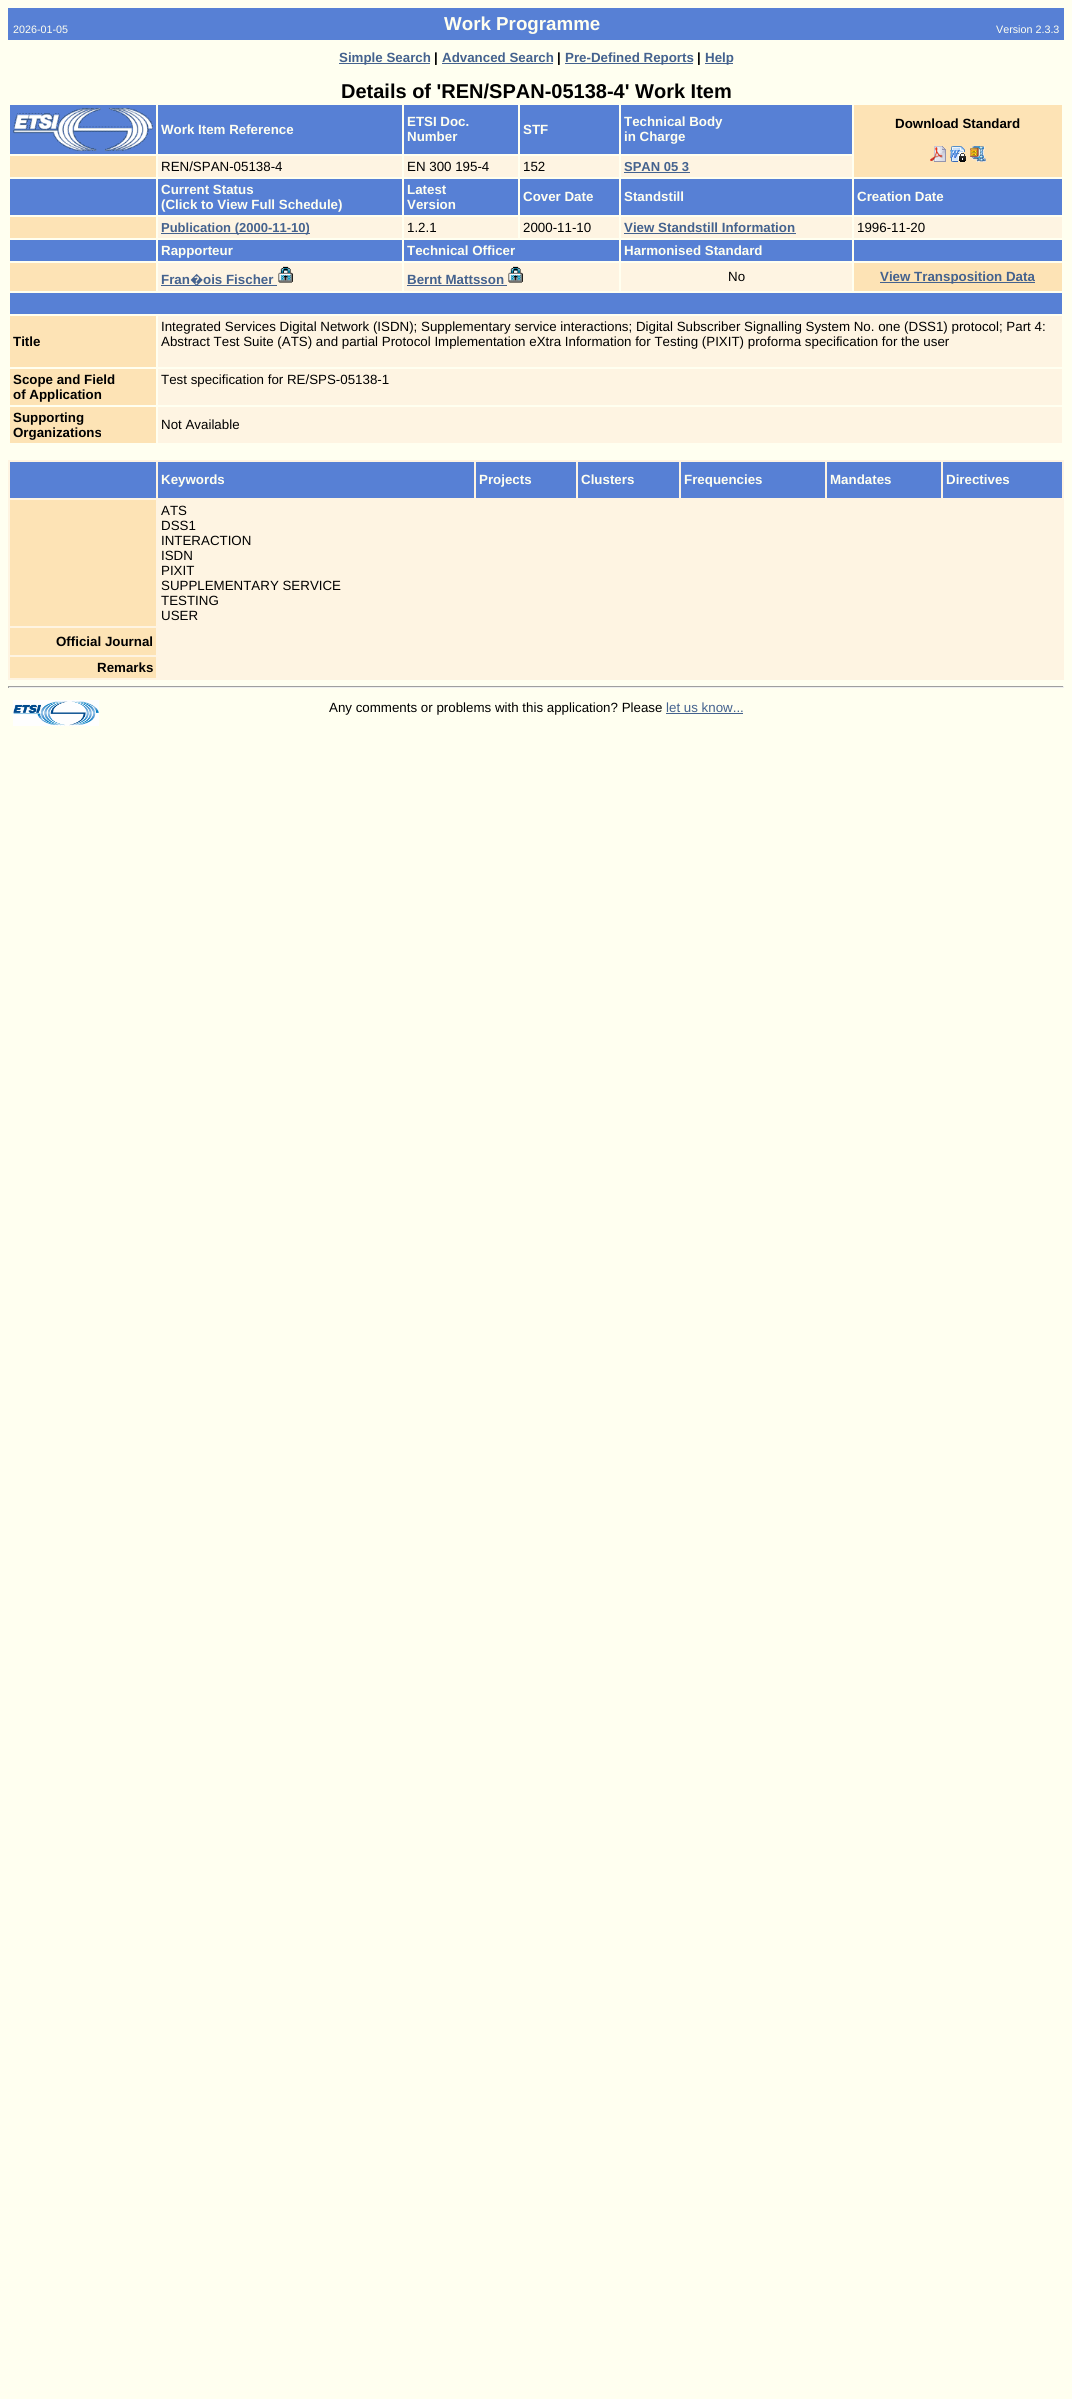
#include <cairo.h>
#include <math.h>
#include <stddef.h>

typedef struct { double x, y; const char *s; } line_t;
typedef struct { double x, y, w, h; unsigned color; } box_t;

static void ink(cairo_t *ctx, unsigned color) {
    cairo_set_source_rgb(ctx, (color >> 16) / 255.0, (color >> 8 & 255) / 255.0, (color & 255) / 255.0);
}

static void paste(cairo_t *ctx, const char *path, double x, double y, double w, double h) {
    cairo_surface_t *image = cairo_image_surface_create_from_png(path);
    cairo_save(ctx);
    cairo_set_source_surface(ctx, image, x, y);
    cairo_rectangle(ctx, x, y, w, h);
    cairo_fill(ctx);
    cairo_restore(ctx);
    cairo_surface_destroy(image);
}

int main(void) {
    cairo_surface_t *surface = cairo_image_surface_create(CAIRO_FORMAT_RGB24, 1072, 2399);
    cairo_t *ctx = cairo_create(surface);
    cairo_font_options_t *options = cairo_font_options_create();
    cairo_font_options_set_hint_metrics(options, CAIRO_HINT_METRICS_OFF);
    cairo_font_options_set_hint_style(options, CAIRO_HINT_STYLE_NONE);
    cairo_set_font_options(ctx, options);
    cairo_set_miter_limit(ctx, 4);
    ink(ctx, 0xFFFFF0);
    cairo_paint(ctx);
    ink(ctx, 0x5780D5);
    cairo_rectangle(ctx, 8, 8, 1056, 32);
    cairo_fill(ctx);
    cairo_select_font_face(ctx, "Liberation Sans", CAIRO_FONT_SLANT_NORMAL, CAIRO_FONT_WEIGHT_NORMAL);
    cairo_set_font_size(ctx, 10.75);
    ink(ctx, 0xFFFFF0);
    cairo_move_to(ctx, 13, 33);
    cairo_show_text(ctx, "2026-01-05");
    cairo_select_font_face(ctx, "Liberation Sans", CAIRO_FONT_SLANT_NORMAL, CAIRO_FONT_WEIGHT_BOLD);
    cairo_set_font_size(ctx, 18.75);
    cairo_move_to(ctx, 444, 30);
    cairo_show_text(ctx, "Work Programme");
    cairo_select_font_face(ctx, "Liberation Sans", CAIRO_FONT_SLANT_NORMAL, CAIRO_FONT_WEIGHT_NORMAL);
    cairo_set_font_size(ctx, 10.75);
    cairo_move_to(ctx, 996, 33);
    cairo_show_text(ctx, "Version 2.3.3");
    ink(ctx, 0x44628E);
    cairo_rectangle(ctx, 339, 63, 91, 1);
    cairo_fill(ctx);
    cairo_select_font_face(ctx, "Liberation Sans", CAIRO_FONT_SLANT_NORMAL, CAIRO_FONT_WEIGHT_BOLD);
    cairo_set_font_size(ctx, 13.33);
    cairo_move_to(ctx, 339, 62);
    cairo_show_text(ctx, "Simple Search");
    ink(ctx, 0x000000);
    cairo_move_to(ctx, 434, 62);
    cairo_show_text(ctx, "|");
    ink(ctx, 0x44628E);
    cairo_move_to(ctx, 442, 62);
    cairo_show_text(ctx, "Advanced Search");
    cairo_rectangle(ctx, 442, 63, 111, 1);
    cairo_fill(ctx);
    ink(ctx, 0x000000);
    cairo_move_to(ctx, 557, 62);
    cairo_show_text(ctx, "|");
    ink(ctx, 0x44628E);
    cairo_rectangle(ctx, 565, 63, 128, 1);
    cairo_fill(ctx);
    cairo_move_to(ctx, 565, 62);
    cairo_show_text(ctx, "Pre-Defined Reports");
    ink(ctx, 0x000000);
    cairo_move_to(ctx, 697, 62);
    cairo_show_text(ctx, "|");
    ink(ctx, 0x44628E);
    cairo_rectangle(ctx, 705, 63, 28, 1);
    cairo_fill(ctx);
    cairo_move_to(ctx, 705, 62);
    cairo_show_text(ctx, "Help");
    cairo_set_font_size(ctx, 20);
    ink(ctx, 0x000000);
    cairo_move_to(ctx, 341, 98);
    cairo_show_text(ctx, "Details of 'REN/SPAN-05138-4' Work Item");
    ink(ctx, 0x5780D5);
    cairo_rectangle(ctx, 10, 105, 146, 49);
    cairo_fill(ctx);
    paste(ctx, "media/1.png", 13, 108, 140, 43);
    cairo_rectangle(ctx, 158, 105, 244, 49);
    cairo_fill(ctx);
    cairo_set_font_size(ctx, 13.33);
    ink(ctx, 0xFFFFF0);
    cairo_move_to(ctx, 161, 134);
    cairo_show_text(ctx, "Work Item Reference");
    ink(ctx, 0x5780D5);
    cairo_rectangle(ctx, 404, 105, 114, 49);
    cairo_fill(ctx);
    ink(ctx, 0xFFFFF0);
    cairo_move_to(ctx, 407, 126);
    cairo_show_text(ctx, "ETSI Doc.");
    cairo_move_to(ctx, 407, 141);
    cairo_show_text(ctx, "Number");
    ink(ctx, 0x5780D5);
    cairo_rectangle(ctx, 520, 105, 99, 49);
    cairo_fill(ctx);
    ink(ctx, 0xFFFFF0);
    cairo_move_to(ctx, 523, 134);
    cairo_show_text(ctx, "STF");
    ink(ctx, 0x5780D5);
    cairo_rectangle(ctx, 621, 105, 231, 49);
    cairo_fill(ctx);
    ink(ctx, 0xFFFFF0);
    cairo_move_to(ctx, 624, 126);
    cairo_show_text(ctx, "Technical Body");
    cairo_move_to(ctx, 624, 141);
    cairo_show_text(ctx, "in Charge");
    ink(ctx, 0xFDE3B5);
    cairo_rectangle(ctx, 854, 105, 208, 72);
    cairo_fill(ctx);
    ink(ctx, 0x000000);
    cairo_move_to(ctx, 895, 128);
    cairo_show_text(ctx, "Download Standard");
    paste(ctx, "media/2.png", 930, 146, 16, 16);
    paste(ctx, "media/3.png", 950, 146, 16, 16);
    paste(ctx, "media/4.png", 970, 146, 16, 16);
    ink(ctx, 0xFDE3B5);
    cairo_rectangle(ctx, 10, 156, 146, 21);
    cairo_fill(ctx);
    ink(ctx, 0xFEF4E2);
    cairo_rectangle(ctx, 158, 156, 244, 21);
    cairo_fill(ctx);
    cairo_select_font_face(ctx, "Liberation Sans", CAIRO_FONT_SLANT_NORMAL, CAIRO_FONT_WEIGHT_NORMAL);
    ink(ctx, 0x000000);
    cairo_move_to(ctx, 161, 171);
    cairo_show_text(ctx, "REN/SPAN-05138-4");
    ink(ctx, 0xFEF4E2);
    cairo_rectangle(ctx, 404, 156, 114, 21);
    cairo_fill(ctx);
    ink(ctx, 0x000000);
    cairo_move_to(ctx, 407, 171);
    cairo_show_text(ctx, "EN 300 195-4");
    ink(ctx, 0xFEF4E2);
    cairo_rectangle(ctx, 520, 156, 99, 21);
    cairo_fill(ctx);
    ink(ctx, 0x000000);
    cairo_move_to(ctx, 523, 171);
    cairo_show_text(ctx, "152");
    ink(ctx, 0xFEF4E2);
    cairo_rectangle(ctx, 621, 156, 231, 21);
    cairo_fill(ctx);
    cairo_select_font_face(ctx, "Liberation Sans", CAIRO_FONT_SLANT_NORMAL, CAIRO_FONT_WEIGHT_BOLD);
    cairo_set_font_size(ctx, 13);
    ink(ctx, 0x44628E);
    cairo_move_to(ctx, 624, 171);
    cairo_show_text(ctx, "SPAN 05 3");
    {
        static const box_t items[] = {
            {624, 172, 66, 1, 0x44628E},
            {10, 179, 146, 36, 0x5780D5},
            {158, 179, 244, 36, 0x5780D5},
        };
        for (size_t i = 0; i < sizeof items / sizeof *items; i++) {
            ink(ctx, items[i].color);
            cairo_rectangle(ctx, items[i].x, items[i].y, items[i].w, items[i].h);
            cairo_fill(ctx);
        }
    }
    cairo_set_font_size(ctx, 13.33);
    ink(ctx, 0xFFFFF0);
    cairo_move_to(ctx, 161, 194);
    cairo_show_text(ctx, "Current Status");
    cairo_move_to(ctx, 161, 209);
    cairo_show_text(ctx, "(Click to View Full Schedule)");
    ink(ctx, 0x5780D5);
    cairo_rectangle(ctx, 404, 179, 114, 36);
    cairo_fill(ctx);
    ink(ctx, 0xFFFFF0);
    cairo_move_to(ctx, 407, 194);
    cairo_show_text(ctx, "Latest");
    cairo_move_to(ctx, 407, 209);
    cairo_show_text(ctx, "Version");
    ink(ctx, 0x5780D5);
    cairo_rectangle(ctx, 520, 179, 99, 36);
    cairo_fill(ctx);
    ink(ctx, 0xFFFFF0);
    cairo_move_to(ctx, 523, 201);
    cairo_show_text(ctx, "Cover Date");
    ink(ctx, 0x5780D5);
    cairo_rectangle(ctx, 621, 179, 231, 36);
    cairo_fill(ctx);
    ink(ctx, 0xFFFFF0);
    cairo_move_to(ctx, 624, 201);
    cairo_show_text(ctx, "Standstill");
    ink(ctx, 0x5780D5);
    cairo_rectangle(ctx, 854, 179, 208, 36);
    cairo_fill(ctx);
    ink(ctx, 0xFFFFF0);
    cairo_move_to(ctx, 857, 201);
    cairo_show_text(ctx, "Creation Date");
    {
        static const box_t items[] = {
            {10, 217, 146, 21, 0xFDE3B5},
            {158, 217, 244, 21, 0xFEF4E2},
            {161, 233, 149, 1, 0x44628E},
        };
        for (size_t i = 0; i < sizeof items / sizeof *items; i++) {
            ink(ctx, items[i].color);
            cairo_rectangle(ctx, items[i].x, items[i].y, items[i].w, items[i].h);
            cairo_fill(ctx);
        }
    }
    cairo_set_font_size(ctx, 13);
    cairo_move_to(ctx, 161, 232);
    cairo_show_text(ctx, "Publication (2000-11-10)");
    ink(ctx, 0xFEF4E2);
    cairo_rectangle(ctx, 404, 217, 114, 21);
    cairo_fill(ctx);
    cairo_select_font_face(ctx, "Liberation Sans", CAIRO_FONT_SLANT_NORMAL, CAIRO_FONT_WEIGHT_NORMAL);
    cairo_set_font_size(ctx, 13.33);
    ink(ctx, 0x000000);
    cairo_move_to(ctx, 407, 232);
    cairo_show_text(ctx, "1.2.1");
    ink(ctx, 0xFEF4E2);
    cairo_rectangle(ctx, 520, 217, 99, 21);
    cairo_fill(ctx);
    ink(ctx, 0x000000);
    cairo_move_to(ctx, 523, 232);
    cairo_show_text(ctx, "2000-11-10");
    ink(ctx, 0xFEF4E2);
    cairo_rectangle(ctx, 621, 217, 231, 21);
    cairo_fill(ctx);
    cairo_select_font_face(ctx, "Liberation Sans", CAIRO_FONT_SLANT_NORMAL, CAIRO_FONT_WEIGHT_BOLD);
    ink(ctx, 0x44628E);
    cairo_move_to(ctx, 624, 232);
    cairo_show_text(ctx, "View Standstill Information");
    cairo_rectangle(ctx, 624, 233, 172, 1);
    cairo_fill(ctx);
    ink(ctx, 0xFEF4E2);
    cairo_rectangle(ctx, 854, 217, 208, 21);
    cairo_fill(ctx);
    cairo_select_font_face(ctx, "Liberation Sans", CAIRO_FONT_SLANT_NORMAL, CAIRO_FONT_WEIGHT_NORMAL);
    ink(ctx, 0x000000);
    cairo_move_to(ctx, 857, 232);
    cairo_show_text(ctx, "1996-11-20");
    ink(ctx, 0x5780D5);
    cairo_rectangle(ctx, 10, 240, 146, 21);
    cairo_fill(ctx);
    cairo_rectangle(ctx, 158, 240, 244, 21);
    cairo_fill(ctx);
    cairo_select_font_face(ctx, "Liberation Sans", CAIRO_FONT_SLANT_NORMAL, CAIRO_FONT_WEIGHT_BOLD);
    ink(ctx, 0xFFFFF0);
    cairo_move_to(ctx, 161, 255);
    cairo_show_text(ctx, "Rapporteur");
    ink(ctx, 0x5780D5);
    cairo_rectangle(ctx, 404, 240, 215, 21);
    cairo_fill(ctx);
    ink(ctx, 0xFFFFF0);
    cairo_move_to(ctx, 407, 255);
    cairo_show_text(ctx, "Technical Officer");
    ink(ctx, 0x5780D5);
    cairo_rectangle(ctx, 621, 240, 231, 21);
    cairo_fill(ctx);
    ink(ctx, 0xFFFFF0);
    cairo_move_to(ctx, 624, 255);
    cairo_show_text(ctx, "Harmonised Standard");
    {
        static const box_t items[] = {
            {854, 240, 208, 21, 0x5780D5},
            {10, 263, 146, 28, 0xFDE3B5},
            {158, 263, 244, 28, 0xFEF4E2},
        };
        for (size_t i = 0; i < sizeof items / sizeof *items; i++) {
            ink(ctx, items[i].color);
            cairo_rectangle(ctx, items[i].x, items[i].y, items[i].w, items[i].h);
            cairo_fill(ctx);
        }
    }
    ink(ctx, 0x44628E);
    cairo_move_to(ctx, 161, 284);
    cairo_show_text(ctx, "Fran");
    cairo_rectangle(ctx, 161, 285, 116, 1);
    cairo_fill(ctx);
    cairo_select_font_face(ctx, "Noto Sans", CAIRO_FONT_SLANT_NORMAL, CAIRO_FONT_WEIGHT_BOLD);
    cairo_move_to(ctx, 190, 284);
    cairo_show_text(ctx, "�");
    cairo_select_font_face(ctx, "Liberation Sans", CAIRO_FONT_SLANT_NORMAL, CAIRO_FONT_WEIGHT_BOLD);
    cairo_move_to(ctx, 203, 284);
    cairo_show_text(ctx, "ois Fischer");
    paste(ctx, "media/5.png", 278, 266, 15, 17);
    ink(ctx, 0xFEF4E2);
    cairo_rectangle(ctx, 404, 263, 215, 28);
    cairo_fill(ctx);
    ink(ctx, 0x44628E);
    cairo_move_to(ctx, 407, 284);
    cairo_show_text(ctx, "Bernt Mattsson");
    cairo_rectangle(ctx, 407, 285, 100, 1);
    cairo_fill(ctx);
    paste(ctx, "media/6.png", 508, 266, 15, 17);
    ink(ctx, 0xFEF4E2);
    cairo_rectangle(ctx, 621, 263, 231, 28);
    cairo_fill(ctx);
    cairo_select_font_face(ctx, "Liberation Sans", CAIRO_FONT_SLANT_NORMAL, CAIRO_FONT_WEIGHT_NORMAL);
    ink(ctx, 0x000000);
    cairo_move_to(ctx, 728, 281);
    cairo_show_text(ctx, "No");
    ink(ctx, 0xFDE3B5);
    cairo_rectangle(ctx, 854, 263, 208, 28);
    cairo_fill(ctx);
    ink(ctx, 0x44628E);
    cairo_rectangle(ctx, 880, 282, 155, 1);
    cairo_fill(ctx);
    cairo_select_font_face(ctx, "Liberation Sans", CAIRO_FONT_SLANT_NORMAL, CAIRO_FONT_WEIGHT_BOLD);
    cairo_move_to(ctx, 880, 281);
    cairo_show_text(ctx, "View Transposition Data");
    ink(ctx, 0x5780D5);
    cairo_rectangle(ctx, 10, 293, 1052, 21);
    cairo_fill(ctx);
    ink(ctx, 0xFDE3B5);
    cairo_rectangle(ctx, 10, 316, 146, 51);
    cairo_fill(ctx);
    ink(ctx, 0x000000);
    cairo_move_to(ctx, 13, 346);
    cairo_show_text(ctx, "Title");
    ink(ctx, 0xFEF4E2);
    cairo_rectangle(ctx, 158, 316, 904, 51);
    cairo_fill(ctx);
    cairo_select_font_face(ctx, "Liberation Sans", CAIRO_FONT_SLANT_NORMAL, CAIRO_FONT_WEIGHT_NORMAL);
    ink(ctx, 0x000000);
    cairo_move_to(ctx, 161, 331);
    cairo_show_text(ctx, "Integrated Services Digital Network (ISDN); Supplementary service interactions; Digital Subscriber Signalling System No. one (DSS1) protocol; Part 4:");
    cairo_move_to(ctx, 161, 346);
    cairo_show_text(ctx, "Abstract Test Suite (ATS) and partial Protocol Implementation eXtra Information for Testing (PIXIT) proforma specification for the user");
    ink(ctx, 0xFDE3B5);
    cairo_rectangle(ctx, 10, 369, 146, 36);
    cairo_fill(ctx);
    cairo_select_font_face(ctx, "Liberation Sans", CAIRO_FONT_SLANT_NORMAL, CAIRO_FONT_WEIGHT_BOLD);
    ink(ctx, 0x000000);
    cairo_move_to(ctx, 13, 384);
    cairo_show_text(ctx, "Scope and Field");
    cairo_move_to(ctx, 13, 399);
    cairo_show_text(ctx, "of Application");
    ink(ctx, 0xFEF4E2);
    cairo_rectangle(ctx, 158, 369, 904, 36);
    cairo_fill(ctx);
    cairo_select_font_face(ctx, "Liberation Sans", CAIRO_FONT_SLANT_NORMAL, CAIRO_FONT_WEIGHT_NORMAL);
    ink(ctx, 0x000000);
    cairo_move_to(ctx, 161, 384);
    cairo_show_text(ctx, "Test specification for RE/SPS-05138-1");
    ink(ctx, 0xFDE3B5);
    cairo_rectangle(ctx, 10, 407, 146, 36);
    cairo_fill(ctx);
    cairo_select_font_face(ctx, "Liberation Sans", CAIRO_FONT_SLANT_NORMAL, CAIRO_FONT_WEIGHT_BOLD);
    ink(ctx, 0x000000);
    cairo_move_to(ctx, 13, 422);
    cairo_show_text(ctx, "Supporting");
    cairo_move_to(ctx, 13, 437);
    cairo_show_text(ctx, "Organizations");
    ink(ctx, 0xFEF4E2);
    cairo_rectangle(ctx, 158, 407, 904, 36);
    cairo_fill(ctx);
    cairo_select_font_face(ctx, "Liberation Sans", CAIRO_FONT_SLANT_NORMAL, CAIRO_FONT_WEIGHT_NORMAL);
    ink(ctx, 0x000000);
    cairo_move_to(ctx, 161, 429);
    cairo_show_text(ctx, "Not Available");
    {
        static const box_t items[] = {
            {8, 460, 1056, 220, 0xFEF4E2},
            {10, 462, 146, 36, 0x5780D5},
            {158, 462, 316, 36, 0x5780D5},
        };
        for (size_t i = 0; i < sizeof items / sizeof *items; i++) {
            ink(ctx, items[i].color);
            cairo_rectangle(ctx, items[i].x, items[i].y, items[i].w, items[i].h);
            cairo_fill(ctx);
        }
    }
    cairo_select_font_face(ctx, "Liberation Sans", CAIRO_FONT_SLANT_NORMAL, CAIRO_FONT_WEIGHT_BOLD);
    ink(ctx, 0xFFFFF0);
    cairo_move_to(ctx, 161, 484);
    cairo_show_text(ctx, "Keywords");
    ink(ctx, 0x5780D5);
    cairo_rectangle(ctx, 476, 462, 100, 36);
    cairo_fill(ctx);
    ink(ctx, 0xFFFFF0);
    cairo_move_to(ctx, 479, 484);
    cairo_show_text(ctx, "Projects");
    ink(ctx, 0x5780D5);
    cairo_rectangle(ctx, 578, 462, 101, 36);
    cairo_fill(ctx);
    ink(ctx, 0xFFFFF0);
    cairo_move_to(ctx, 581, 484);
    cairo_show_text(ctx, "Clusters");
    ink(ctx, 0x5780D5);
    cairo_rectangle(ctx, 681, 462, 144, 36);
    cairo_fill(ctx);
    ink(ctx, 0xFFFFF0);
    cairo_move_to(ctx, 684, 484);
    cairo_show_text(ctx, "Frequencies");
    ink(ctx, 0x5780D5);
    cairo_rectangle(ctx, 827, 462, 114, 36);
    cairo_fill(ctx);
    ink(ctx, 0xFFFFF0);
    cairo_move_to(ctx, 830, 484);
    cairo_show_text(ctx, "Mandates");
    ink(ctx, 0x5780D5);
    cairo_rectangle(ctx, 943, 462, 119, 36);
    cairo_fill(ctx);
    ink(ctx, 0xFFFFF0);
    cairo_move_to(ctx, 946, 484);
    cairo_show_text(ctx, "Directives");
    ink(ctx, 0xFDE3B5);
    cairo_rectangle(ctx, 10, 500, 146, 126);
    cairo_fill(ctx);
    cairo_select_font_face(ctx, "Liberation Sans", CAIRO_FONT_SLANT_NORMAL, CAIRO_FONT_WEIGHT_NORMAL);
    ink(ctx, 0x000000);
    {
        static const line_t items[] = {
            {161, 515, "ATS"},
            {161, 530, "DSS1"},
            {161, 545, "INTERACTION"},
            {161, 560, "ISDN"},
            {161, 575, "PIXIT"},
            {161, 590, "SUPPLEMENTARY SERVICE"},
            {161, 605, "TESTING"},
            {161, 620, "USER"},
        };
        for (size_t i = 0; i < sizeof items / sizeof *items; i++) {
            cairo_move_to(ctx, items[i].x, items[i].y);
            cairo_show_text(ctx, items[i].s);
        }
    }
    ink(ctx, 0xFDE3B5);
    cairo_rectangle(ctx, 10, 628, 146, 27);
    cairo_fill(ctx);
    cairo_select_font_face(ctx, "Liberation Sans", CAIRO_FONT_SLANT_NORMAL, CAIRO_FONT_WEIGHT_BOLD);
    ink(ctx, 0x000000);
    cairo_move_to(ctx, 56, 646);
    cairo_show_text(ctx, "Official Journal");
    ink(ctx, 0xFDE3B5);
    cairo_rectangle(ctx, 10, 657, 146, 21);
    cairo_fill(ctx);
    ink(ctx, 0x000000);
    cairo_move_to(ctx, 97, 672);
    cairo_show_text(ctx, "Remarks");
    {
        static const box_t items[] = {
            {8, 686, 1056, 1, 0x9F9F9F},
            {1063, 686, 1, 2, 0xEEEEEE},
            {8, 687, 1056, 1, 0xEEEEEE},
            {8, 686, 1, 2, 0x9F9F9F},
        };
        for (size_t i = 0; i < sizeof items / sizeof *items; i++) {
            ink(ctx, items[i].color);
            cairo_rectangle(ctx, items[i].x, items[i].y, items[i].w, items[i].h);
            cairo_fill(ctx);
        }
    }
    paste(ctx, "media/7.png", 13, 700, 86, 26);
    cairo_select_font_face(ctx, "Liberation Sans", CAIRO_FONT_SLANT_NORMAL, CAIRO_FONT_WEIGHT_NORMAL);
    ink(ctx, 0x000000);
    cairo_move_to(ctx, 329, 712);
    cairo_show_text(ctx, "Any comments or problems with this application? Please");
    ink(ctx, 0x44628E);
    cairo_move_to(ctx, 666, 712);
    cairo_show_text(ctx, "let us know...");
    cairo_rectangle(ctx, 666, 713, 77, 1);
    cairo_fill(ctx);
    cairo_surface_write_to_png(surface, "image.png");
    cairo_font_options_destroy(options);
    cairo_destroy(ctx);
    cairo_surface_destroy(surface);
    return 0;
}
